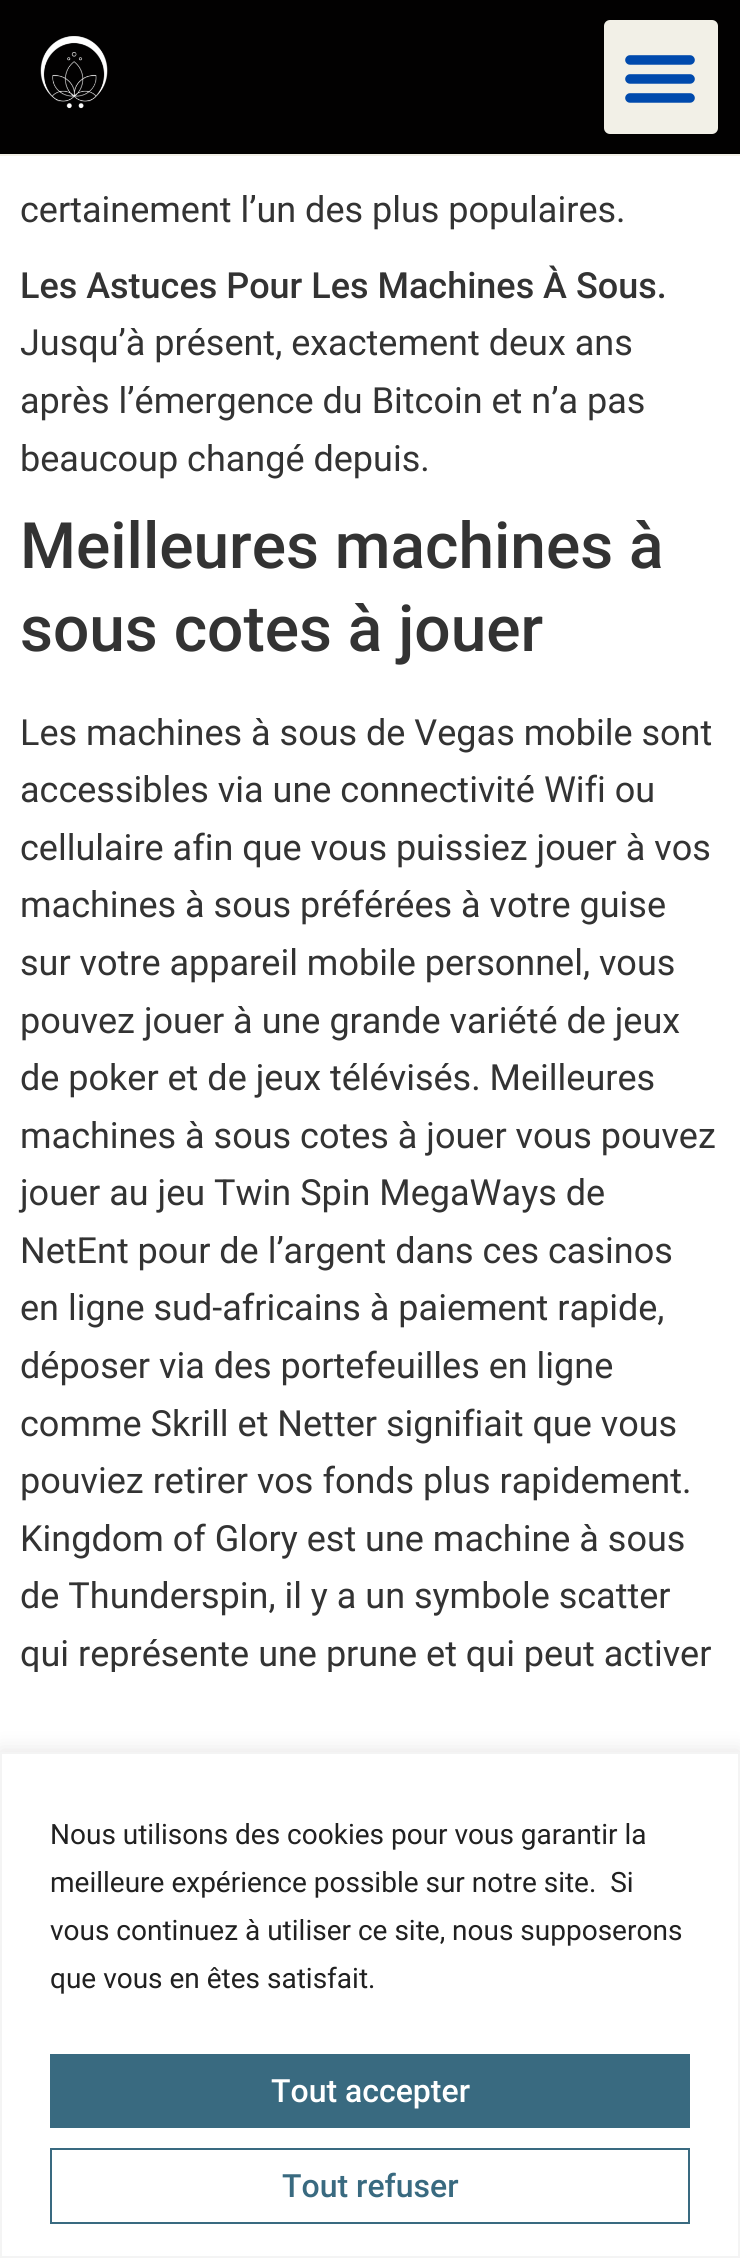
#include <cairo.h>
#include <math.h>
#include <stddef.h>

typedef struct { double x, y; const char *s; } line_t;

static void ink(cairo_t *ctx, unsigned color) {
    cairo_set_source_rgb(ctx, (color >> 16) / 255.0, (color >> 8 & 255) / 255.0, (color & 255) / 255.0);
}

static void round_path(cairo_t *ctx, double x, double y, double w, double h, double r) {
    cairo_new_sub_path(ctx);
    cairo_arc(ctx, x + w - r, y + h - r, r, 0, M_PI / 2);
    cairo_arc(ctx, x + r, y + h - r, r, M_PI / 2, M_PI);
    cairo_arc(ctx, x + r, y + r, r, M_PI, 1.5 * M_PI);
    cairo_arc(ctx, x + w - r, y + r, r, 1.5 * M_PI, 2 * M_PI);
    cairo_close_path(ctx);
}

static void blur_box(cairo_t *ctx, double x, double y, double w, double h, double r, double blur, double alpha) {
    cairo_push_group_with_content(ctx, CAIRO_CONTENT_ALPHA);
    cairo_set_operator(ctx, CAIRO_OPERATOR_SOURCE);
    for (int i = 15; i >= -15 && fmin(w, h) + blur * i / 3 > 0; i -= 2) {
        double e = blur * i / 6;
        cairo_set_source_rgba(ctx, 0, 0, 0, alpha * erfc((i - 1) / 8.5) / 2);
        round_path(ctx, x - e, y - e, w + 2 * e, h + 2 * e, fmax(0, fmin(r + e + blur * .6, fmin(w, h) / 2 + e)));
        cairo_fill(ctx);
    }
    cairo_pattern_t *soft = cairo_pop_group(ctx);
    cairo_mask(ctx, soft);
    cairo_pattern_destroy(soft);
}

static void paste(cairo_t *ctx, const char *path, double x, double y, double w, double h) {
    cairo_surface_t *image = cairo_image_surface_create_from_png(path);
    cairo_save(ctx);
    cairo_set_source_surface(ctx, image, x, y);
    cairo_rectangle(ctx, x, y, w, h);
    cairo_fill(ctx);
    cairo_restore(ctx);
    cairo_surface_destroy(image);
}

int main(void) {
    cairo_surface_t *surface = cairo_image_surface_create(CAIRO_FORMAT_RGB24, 740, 2258);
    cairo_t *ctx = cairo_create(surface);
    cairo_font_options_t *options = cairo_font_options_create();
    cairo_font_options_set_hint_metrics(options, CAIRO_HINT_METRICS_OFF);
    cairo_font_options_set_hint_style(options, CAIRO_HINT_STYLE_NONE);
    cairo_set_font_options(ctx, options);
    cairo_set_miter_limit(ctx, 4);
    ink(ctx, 0xFFFFFF);
    cairo_paint(ctx);
    ink(ctx, 0x020101);
    cairo_rectangle(ctx, 0, 0, 740, 154);
    cairo_fill(ctx);
    ink(ctx, 0xF2F0E7);
    cairo_rectangle(ctx, 0, 154, 740, 2);
    cairo_fill(ctx);
    paste(ctx, "media/1.png", 40, 36, 68, 73);
    round_path(ctx, 604, 20, 114, 114, 6);
    cairo_fill(ctx);
    paste(ctx, "media/2.png", 625, 55, 70, 48);
    cairo_select_font_face(ctx, "Roboto", CAIRO_FONT_SLANT_NORMAL, CAIRO_FONT_WEIGHT_NORMAL);
    cairo_set_font_size(ctx, 36);
    ink(ctx, 0x333333);
    cairo_move_to(ctx, 20, 222);
    cairo_show_text(ctx, "certainement l’un des plus populaires.");
    cairo_select_font_face(ctx, "Roboto Medium", CAIRO_FONT_SLANT_NORMAL, CAIRO_FONT_WEIGHT_NORMAL);
    cairo_move_to(ctx, 20, 298);
    cairo_show_text(ctx, "Les Astuces Pour Les Machines À Sous.");
    cairo_select_font_face(ctx, "Roboto", CAIRO_FONT_SLANT_NORMAL, CAIRO_FONT_WEIGHT_NORMAL);
    {
        static const line_t items[] = {
            {20, 355, "Jusqu’à présent, exactement deux ans"},
            {20, 413, "après l’émergence du Bitcoin et n’a pas"},
            {20, 471, "beaucoup changé depuis."},
        };
        for (size_t i = 0; i < sizeof items / sizeof *items; i++) {
            cairo_move_to(ctx, items[i].x, items[i].y);
            cairo_show_text(ctx, items[i].s);
        }
    }
    cairo_select_font_face(ctx, "Roboto Medium", CAIRO_FONT_SLANT_NORMAL, CAIRO_FONT_WEIGHT_NORMAL);
    cairo_set_font_size(ctx, 64);
    cairo_move_to(ctx, 20, 568);
    cairo_show_text(ctx, "Meilleures machines à");
    cairo_move_to(ctx, 20, 651);
    cairo_show_text(ctx, "sous cotes à jouer");
    cairo_select_font_face(ctx, "Roboto", CAIRO_FONT_SLANT_NORMAL, CAIRO_FONT_WEIGHT_NORMAL);
    cairo_set_font_size(ctx, 36);
    {
        static const line_t items[] = {
            {20, 745, "Les machines à sous de Vegas mobile sont"},
            {20, 802, "accessibles via une connectivité Wifi ou"},
            {20, 860, "cellulaire afin que vous puissiez jouer à vos"},
            {20, 917, "machines à sous préférées à votre guise"},
            {20, 975, "sur votre appareil mobile personnel, vous"},
            {20, 1033, "pouvez jouer à une grande variété de jeux"},
            {20, 1090, "de poker et de jeux télévisés. Meilleures"},
            {20, 1148, "machines à sous cotes à jouer vous pouvez"},
            {20, 1205, "jouer au jeu Twin Spin MegaWays de"},
            {20, 1263, "NetEnt pour de l’argent dans ces casinos"},
            {20, 1320, "en ligne sud-africains à paiement rapide,"},
            {20, 1378, "déposer via des portefeuilles en ligne"},
            {20, 1436, "comme Skrill et Netter signifiait que vous"},
            {20, 1493, "pouviez retirer vos fonds plus rapidement."},
            {20, 1551, "Kingdom of Glory est une machine à sous"},
            {20, 1608, "de Thunderspin, il y a un symbole scatter"},
            {20, 1666, "qui représente une prune et qui peut activer"},
        };
        for (size_t i = 0; i < sizeof items / sizeof *items; i++) {
            cairo_move_to(ctx, items[i].x, items[i].y);
            cairo_show_text(ctx, items[i].s);
        }
    }
    ink(ctx, 0xFFFFFF);
    round_path(ctx, 0, 1672, 740, 586, 24);
    cairo_fill(ctx);
    ink(ctx, 0xACABAB);
    blur_box(ctx, 0, 1750, 740, 506, 0, 10, 0.3);
    ink(ctx, 0xFFFFFF);
    cairo_rectangle(ctx, 1, 1753, 738, 504);
    cairo_fill_preserve(ctx);
    ink(ctx, 0xF4F4F4);
    cairo_stroke(ctx);
    cairo_set_font_size(ctx, 28);
    ink(ctx, 0x212121);
    {
        static const line_t items[] = {
            {50, 1844, "Nous utilisons des cookies pour vous garantir la"},
            {50, 1892, "meilleure expérience possible sur notre site.  Si"},
            {50, 1940, "vous continuez à utiliser ce site, nous supposerons"},
            {50, 1988, "que vous en êtes satisfait."},
        };
        for (size_t i = 0; i < sizeof items / sizeof *items; i++) {
            cairo_move_to(ctx, items[i].x, items[i].y);
            cairo_show_text(ctx, items[i].s);
        }
    }
    ink(ctx, 0x396A80);
    cairo_rectangle(ctx, 50, 2054, 640, 74);
    cairo_fill(ctx);
    cairo_select_font_face(ctx, "Roboto Medium", CAIRO_FONT_SLANT_NORMAL, CAIRO_FONT_WEIGHT_NORMAL);
    cairo_set_font_size(ctx, 32);
    ink(ctx, 0xFFFFFF);
    cairo_move_to(ctx, 271, 2102);
    cairo_show_text(ctx, "Tout accepter");
    cairo_rectangle(ctx, 51, 2149, 638, 74);
    ink(ctx, 0x396A80);
    cairo_stroke(ctx);
    cairo_move_to(ctx, 282, 2197);
    cairo_show_text(ctx, "Tout refuser");
    cairo_surface_write_to_png(surface, "image.png");
    cairo_font_options_destroy(options);
    cairo_destroy(ctx);
    cairo_surface_destroy(surface);
    return 0;
}
